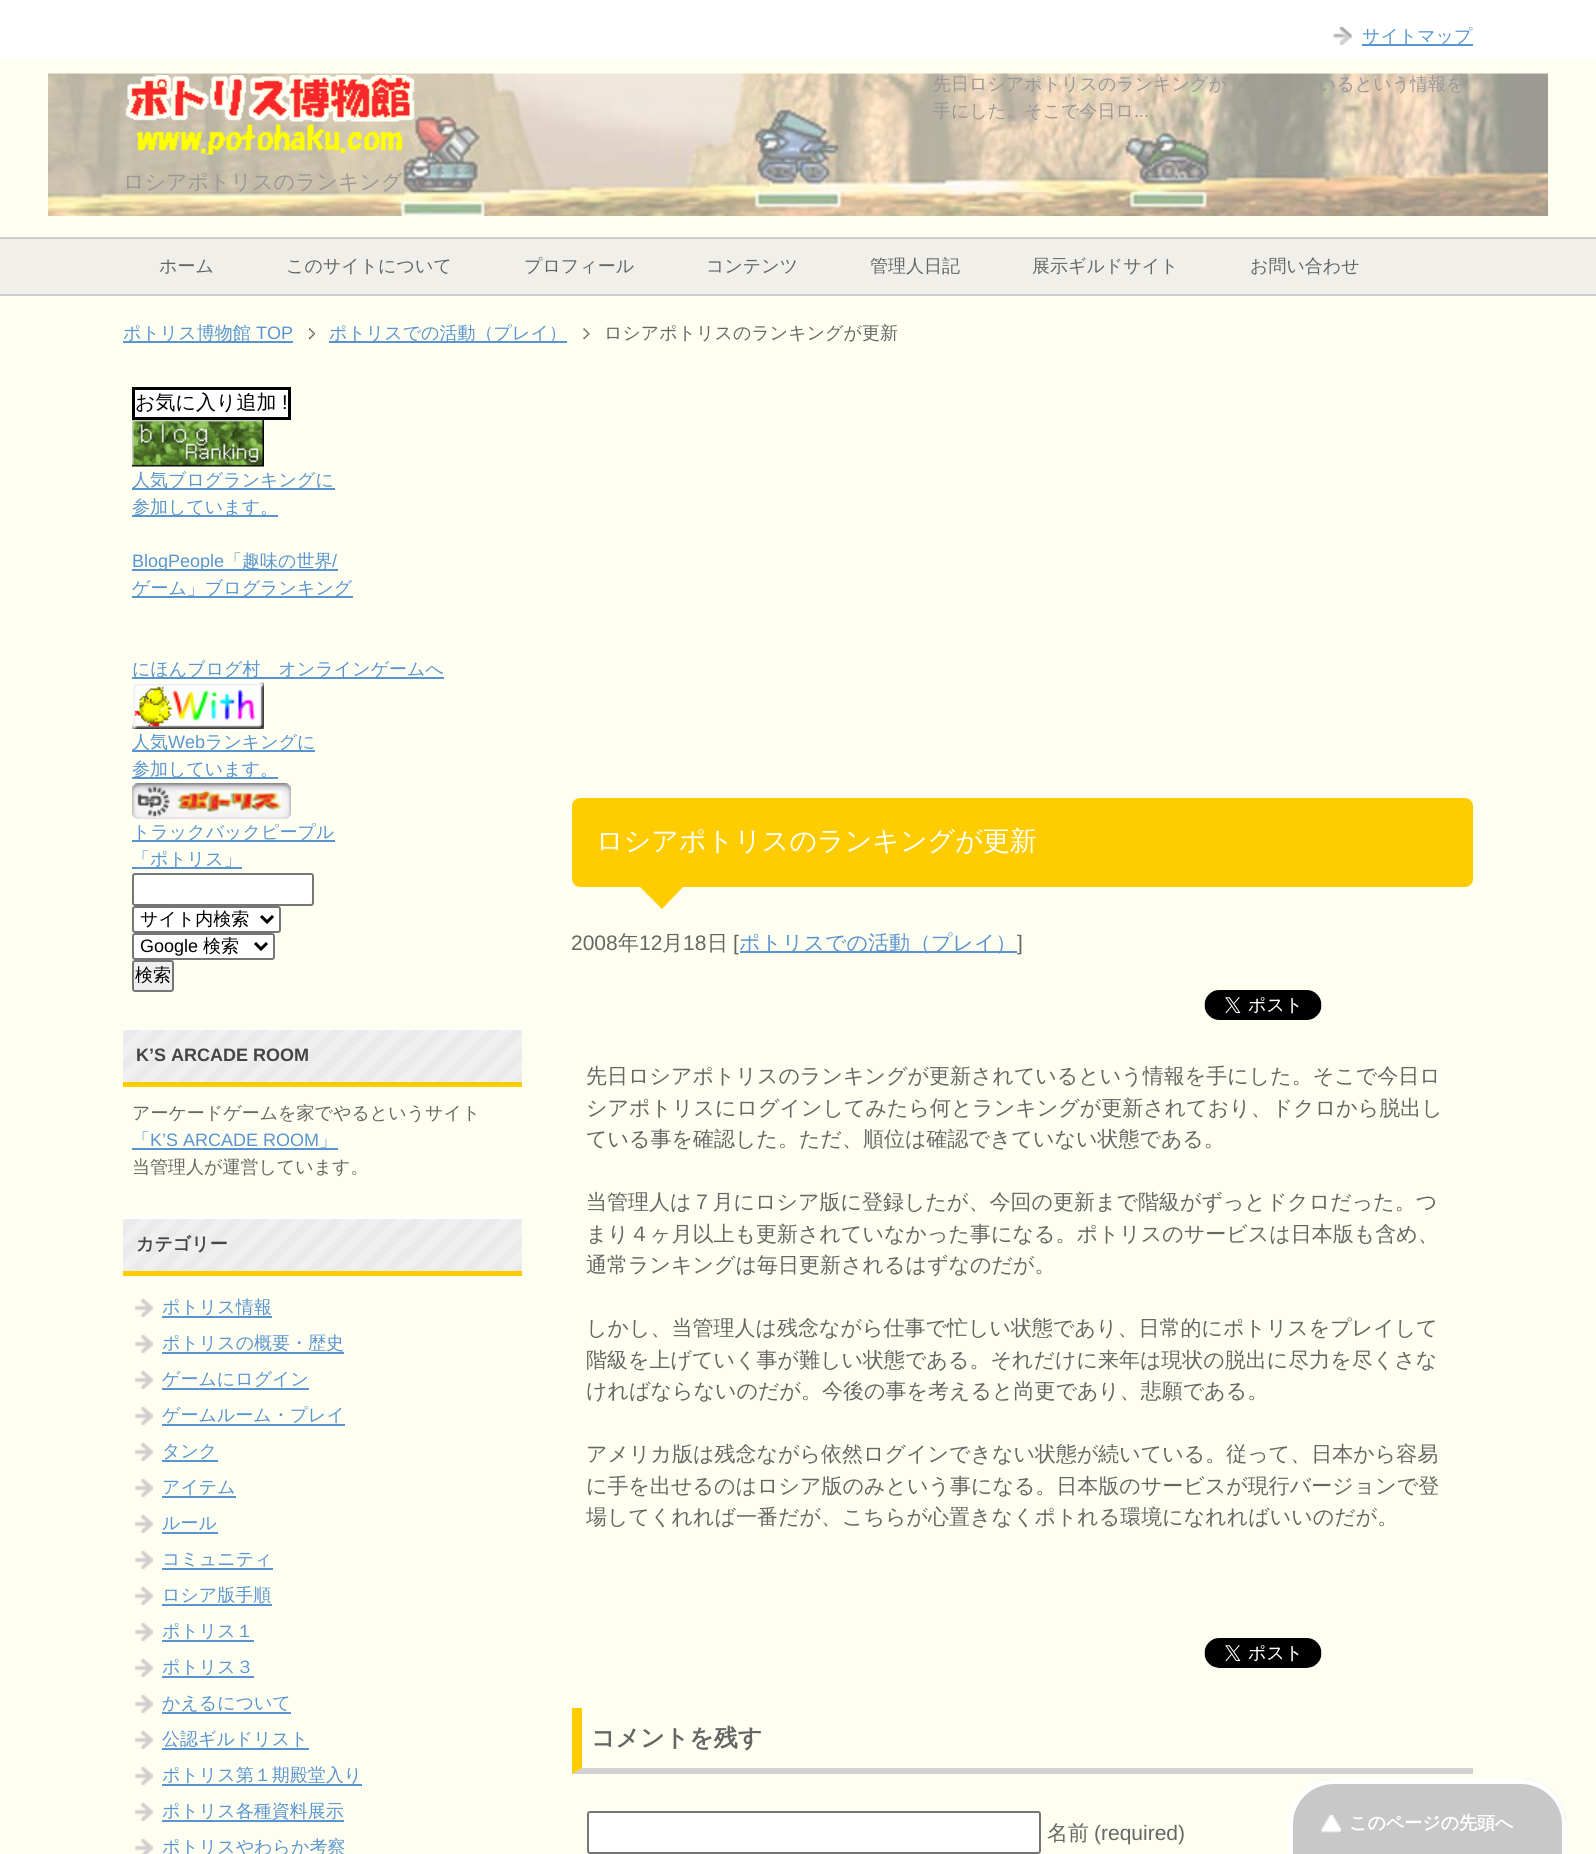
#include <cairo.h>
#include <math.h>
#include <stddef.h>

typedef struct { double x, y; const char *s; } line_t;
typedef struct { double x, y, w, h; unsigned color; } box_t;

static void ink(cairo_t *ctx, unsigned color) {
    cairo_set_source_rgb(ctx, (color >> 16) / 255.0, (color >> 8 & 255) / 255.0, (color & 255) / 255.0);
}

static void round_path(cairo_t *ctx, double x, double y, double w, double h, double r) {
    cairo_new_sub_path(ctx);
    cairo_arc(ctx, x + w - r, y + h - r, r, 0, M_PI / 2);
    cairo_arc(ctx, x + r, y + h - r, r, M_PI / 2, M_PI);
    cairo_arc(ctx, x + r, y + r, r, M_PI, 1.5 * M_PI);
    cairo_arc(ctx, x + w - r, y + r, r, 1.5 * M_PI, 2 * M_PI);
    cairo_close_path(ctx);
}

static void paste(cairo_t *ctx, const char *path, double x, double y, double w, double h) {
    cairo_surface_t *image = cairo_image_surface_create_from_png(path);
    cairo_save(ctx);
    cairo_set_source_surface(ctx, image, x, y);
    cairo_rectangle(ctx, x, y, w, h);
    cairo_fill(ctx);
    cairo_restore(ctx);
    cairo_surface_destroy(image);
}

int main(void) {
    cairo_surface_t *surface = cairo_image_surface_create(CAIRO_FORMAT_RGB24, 1596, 1854);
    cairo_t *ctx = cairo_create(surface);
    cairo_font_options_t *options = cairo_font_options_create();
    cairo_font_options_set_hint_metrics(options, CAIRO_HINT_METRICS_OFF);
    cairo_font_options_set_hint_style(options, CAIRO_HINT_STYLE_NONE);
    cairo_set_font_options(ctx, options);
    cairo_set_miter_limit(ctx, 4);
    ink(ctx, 0xFFFFFF);
    cairo_paint(ctx);
    ink(ctx, 0xFFFFF1);
    cairo_rectangle(ctx, 0, 57, 1596, 1797);
    cairo_fill(ctx);
    paste(ctx, "media/1.png", 1333, 27, 19, 18);
    ink(ctx, 0x5895D0);
    cairo_rectangle(ctx, 1362, 44, 111, 2);
    cairo_fill(ctx);
    cairo_select_font_face(ctx, "WenQuanYi Zen Hei Medium", CAIRO_FONT_SLANT_NORMAL, CAIRO_FONT_WEIGHT_NORMAL);
    cairo_set_font_size(ctx, 18);
    cairo_move_to(ctx, 1362, 42);
    cairo_show_text(ctx, "サイトマップ");
    paste(ctx, "media/2.png", 48, 73, 1500, 143);
    ink(ctx, 0x999999);
    {
        static const line_t items[] = {
            {933, 90, "先日ロシアポトリスのランキングが"},
            {1318, 90, "いるという情報を"},
            {933, 117, "手にした。そこで今日ロ"},
        };
        for (size_t i = 0; i < sizeof items / sizeof *items; i++) {
            cairo_move_to(ctx, items[i].x, items[i].y);
            cairo_show_text(ctx, items[i].s);
        }
    }
    cairo_select_font_face(ctx, "Liberation Sans", CAIRO_FONT_SLANT_NORMAL, CAIRO_FONT_WEIGHT_NORMAL);
    cairo_move_to(ctx, 1134, 117);
    cairo_show_text(ctx, "...");
    paste(ctx, "media/3.png", 125, 75, 290, 80);
    cairo_select_font_face(ctx, "WenQuanYi Zen Hei Medium", CAIRO_FONT_SLANT_NORMAL, CAIRO_FONT_WEIGHT_NORMAL);
    cairo_set_font_size(ctx, 21);
    cairo_move_to(ctx, 123, 189);
    cairo_show_text(ctx, "ロシアポトリスのランキング");
    {
        static const box_t items[] = {
            {0, 239, 1596, 55, 0xF0EFEA},
            {0, 237, 1596, 2, 0xCCCCCC},
            {0, 294, 1596, 2, 0xCCCCCC},
        };
        for (size_t i = 0; i < sizeof items / sizeof *items; i++) {
            ink(ctx, items[i].color);
            cairo_rectangle(ctx, items[i].x, items[i].y, items[i].w, items[i].h);
            cairo_fill(ctx);
        }
    }
    cairo_set_font_size(ctx, 18);
    ink(ctx, 0x666666);
    {
        static const line_t items[] = {
            {159, 272, "ホーム"},
            {286, 272, "このサイトについて"},
            {524, 272, "プロフィール"},
            {706, 272, "コンテンツ"},
            {870, 272, "管理人日記"},
            {1032, 272, "展示ギルドサイト"},
            {1250, 272, "お問い合わせ"},
        };
        for (size_t i = 0; i < sizeof items / sizeof *items; i++) {
            cairo_move_to(ctx, items[i].x, items[i].y);
            cairo_show_text(ctx, items[i].s);
        }
    }
    ink(ctx, 0x5895D0);
    cairo_rectangle(ctx, 123, 341, 170, 2);
    cairo_fill(ctx);
    cairo_move_to(ctx, 123, 339);
    cairo_show_text(ctx, "ポトリス博物館");
    cairo_select_font_face(ctx, "Liberation Sans", CAIRO_FONT_SLANT_NORMAL, CAIRO_FONT_WEIGHT_NORMAL);
    cairo_move_to(ctx, 256, 339);
    cairo_show_text(ctx, "TOP");
    paste(ctx, "media/4.png", 309, 328, 6, 11);
    cairo_rectangle(ctx, 329, 341, 238, 2);
    cairo_fill(ctx);
    cairo_select_font_face(ctx, "WenQuanYi Zen Hei Medium", CAIRO_FONT_SLANT_NORMAL, CAIRO_FONT_WEIGHT_NORMAL);
    cairo_move_to(ctx, 329, 339);
    cairo_show_text(ctx, "ポトリスでの活動（プレイ）");
    paste(ctx, "media/5.png", 583, 328, 7, 11);
    ink(ctx, 0x666666);
    cairo_move_to(ctx, 604, 339);
    cairo_show_text(ctx, "ロシアポトリスのランキングが更新");
    ink(ctx, 0xFFFFFF);
    cairo_rectangle(ctx, 133.5, 388.5, 156, 30);
    cairo_fill_preserve(ctx);
    ink(ctx, 0x000000);
    cairo_set_line_width(ctx, 3);
    cairo_stroke(ctx);
    cairo_set_font_size(ctx, 20);
    cairo_move_to(ctx, 135, 409);
    cairo_show_text(ctx, "お気に入り追加");
    cairo_select_font_face(ctx, "Liberation Sans", CAIRO_FONT_SLANT_NORMAL, CAIRO_FONT_WEIGHT_NORMAL);
    cairo_move_to(ctx, 282, 409);
    cairo_show_text(ctx, "!");
    paste(ctx, "media/6.png", 132, 420, 132, 47);
    ink(ctx, 0x5895D0);
    cairo_rectangle(ctx, 132, 488, 203, 2);
    cairo_fill(ctx);
    cairo_select_font_face(ctx, "WenQuanYi Zen Hei Medium", CAIRO_FONT_SLANT_NORMAL, CAIRO_FONT_WEIGHT_NORMAL);
    cairo_set_font_size(ctx, 18);
    cairo_move_to(ctx, 132, 486);
    cairo_show_text(ctx, "人気ブログランキングに");
    cairo_rectangle(ctx, 132, 515, 146, 2);
    cairo_fill(ctx);
    cairo_move_to(ctx, 132, 513);
    cairo_show_text(ctx, "参加しています。");
    cairo_rectangle(ctx, 132, 569, 206, 2);
    cairo_fill(ctx);
    cairo_select_font_face(ctx, "Liberation Sans", CAIRO_FONT_SLANT_NORMAL, CAIRO_FONT_WEIGHT_NORMAL);
    cairo_move_to(ctx, 132, 567);
    cairo_show_text(ctx, "BlogPeople");
    cairo_select_font_face(ctx, "WenQuanYi Zen Hei Medium", CAIRO_FONT_SLANT_NORMAL, CAIRO_FONT_WEIGHT_NORMAL);
    cairo_move_to(ctx, 224, 567);
    cairo_show_text(ctx, "「趣味の世界");
    cairo_select_font_face(ctx, "Liberation Sans", CAIRO_FONT_SLANT_NORMAL, CAIRO_FONT_WEIGHT_NORMAL);
    cairo_move_to(ctx, 332, 567);
    cairo_show_text(ctx, "/");
    cairo_rectangle(ctx, 132, 596, 221, 2);
    cairo_fill(ctx);
    cairo_select_font_face(ctx, "WenQuanYi Zen Hei Medium", CAIRO_FONT_SLANT_NORMAL, CAIRO_FONT_WEIGHT_NORMAL);
    cairo_move_to(ctx, 132, 594);
    cairo_show_text(ctx, "ゲーム」ブログランキング");
    cairo_rectangle(ctx, 132, 677, 312, 2);
    cairo_fill(ctx);
    cairo_move_to(ctx, 132, 675);
    cairo_show_text(ctx, "にほんブログ村　オンラインゲームへ");
    paste(ctx, "media/7.png", 132, 682, 132, 47);
    cairo_rectangle(ctx, 132, 750, 183, 2);
    cairo_fill(ctx);
    cairo_move_to(ctx, 132, 748);
    cairo_show_text(ctx, "人気");
    cairo_select_font_face(ctx, "Liberation Sans", CAIRO_FONT_SLANT_NORMAL, CAIRO_FONT_WEIGHT_NORMAL);
    cairo_move_to(ctx, 168, 748);
    cairo_show_text(ctx, "Web");
    cairo_select_font_face(ctx, "WenQuanYi Zen Hei Medium", CAIRO_FONT_SLANT_NORMAL, CAIRO_FONT_WEIGHT_NORMAL);
    cairo_move_to(ctx, 205, 748);
    cairo_show_text(ctx, "ランキングに");
    cairo_rectangle(ctx, 132, 777, 146, 2);
    cairo_fill(ctx);
    cairo_move_to(ctx, 132, 775);
    cairo_show_text(ctx, "参加しています。");
    paste(ctx, "media/8.png", 132, 783, 159, 36);
    cairo_rectangle(ctx, 132, 840, 203, 2);
    cairo_fill(ctx);
    cairo_move_to(ctx, 132, 838);
    cairo_show_text(ctx, "トラックバックピープル");
    cairo_rectangle(ctx, 132, 867, 110, 2);
    cairo_fill(ctx);
    cairo_move_to(ctx, 132, 865);
    cairo_show_text(ctx, "「ポトリス」");
    ink(ctx, 0xFFFFFF);
    round_path(ctx, 133, 874, 180, 31, 2);
    cairo_fill_preserve(ctx);
    ink(ctx, 0x767676);
    cairo_set_line_width(ctx, 2);
    cairo_stroke(ctx);
    ink(ctx, 0xFFFFFF);
    round_path(ctx, 133, 907, 147, 25, 2);
    cairo_fill_preserve(ctx);
    ink(ctx, 0x767676);
    cairo_stroke(ctx);
    cairo_new_path(ctx);
    cairo_move_to(ctx, 261, 916);
    cairo_line_to(ctx, 267, 922);
    cairo_line_to(ctx, 273, 916);
    ink(ctx, 0x000000);
    cairo_set_line_width(ctx, 3);
    cairo_stroke(ctx);
    cairo_move_to(ctx, 140, 925);
    cairo_show_text(ctx, "サイト内検索");
    ink(ctx, 0xFFFFFF);
    round_path(ctx, 133, 934, 141, 25, 2);
    cairo_fill_preserve(ctx);
    ink(ctx, 0x767676);
    cairo_set_line_width(ctx, 2);
    cairo_stroke(ctx);
    cairo_new_path(ctx);
    cairo_move_to(ctx, 255, 943);
    cairo_line_to(ctx, 261, 949);
    cairo_line_to(ctx, 267, 943);
    ink(ctx, 0x000000);
    cairo_set_line_width(ctx, 3);
    cairo_stroke(ctx);
    cairo_select_font_face(ctx, "Liberation Sans", CAIRO_FONT_SLANT_NORMAL, CAIRO_FONT_WEIGHT_NORMAL);
    cairo_move_to(ctx, 140, 952);
    cairo_show_text(ctx, "Google");
    cairo_select_font_face(ctx, "WenQuanYi Zen Hei Medium", CAIRO_FONT_SLANT_NORMAL, CAIRO_FONT_WEIGHT_NORMAL);
    cairo_move_to(ctx, 203, 952);
    cairo_show_text(ctx, "検索");
    ink(ctx, 0xEFEFEF);
    round_path(ctx, 133, 961, 40, 30, 2);
    cairo_fill_preserve(ctx);
    ink(ctx, 0x767676);
    cairo_set_line_width(ctx, 2);
    cairo_stroke(ctx);
    ink(ctx, 0x000000);
    cairo_move_to(ctx, 135, 981);
    cairo_show_text(ctx, "検索");
    ink(ctx, 0xEBEAEA);
    cairo_rectangle(ctx, 123, 1030, 399, 52);
    cairo_fill(ctx);
    paste(ctx, "media/9.png", 123, 1030, 399, 52);
    ink(ctx, 0xFFFFFF);
    cairo_rectangle(ctx, 123, 1028, 399, 2);
    cairo_fill(ctx);
    ink(ctx, 0xFFCC00);
    cairo_rectangle(ctx, 123, 1082, 399, 5);
    cairo_fill(ctx);
    cairo_select_font_face(ctx, "Liberation Sans", CAIRO_FONT_SLANT_NORMAL, CAIRO_FONT_WEIGHT_BOLD);
    ink(ctx, 0x454545);
    cairo_move_to(ctx, 136, 1061);
    cairo_show_text(ctx, "K’S ARCADE ROOM");
    cairo_select_font_face(ctx, "WenQuanYi Zen Hei Medium", CAIRO_FONT_SLANT_NORMAL, CAIRO_FONT_WEIGHT_NORMAL);
    ink(ctx, 0x666666);
    cairo_move_to(ctx, 132, 1119);
    cairo_show_text(ctx, "アーケードゲームを家でやるというサイト");
    ink(ctx, 0x5895D0);
    cairo_move_to(ctx, 132, 1146);
    cairo_show_text(ctx, "「");
    cairo_select_font_face(ctx, "Liberation Sans", CAIRO_FONT_SLANT_NORMAL, CAIRO_FONT_WEIGHT_NORMAL);
    cairo_move_to(ctx, 150, 1146);
    cairo_show_text(ctx, "K’S ARCADE ROOM");
    cairo_select_font_face(ctx, "WenQuanYi Zen Hei Medium", CAIRO_FONT_SLANT_NORMAL, CAIRO_FONT_WEIGHT_NORMAL);
    cairo_move_to(ctx, 319, 1146);
    cairo_show_text(ctx, "」");
    cairo_rectangle(ctx, 132, 1148, 206, 2);
    cairo_fill(ctx);
    ink(ctx, 0x666666);
    cairo_move_to(ctx, 132, 1173);
    cairo_show_text(ctx, "当管理人が運営しています。");
    ink(ctx, 0xEBEAEA);
    cairo_rectangle(ctx, 123, 1219, 399, 52);
    cairo_fill(ctx);
    paste(ctx, "media/9.png", 123, 1219, 399, 52);
    ink(ctx, 0xFFFFFF);
    cairo_rectangle(ctx, 123, 1217, 399, 2);
    cairo_fill(ctx);
    ink(ctx, 0xFFCC00);
    cairo_rectangle(ctx, 123, 1271, 399, 5);
    cairo_fill(ctx);
    cairo_select_font_face(ctx, "WenQuanYi Zen Hei", CAIRO_FONT_SLANT_NORMAL, CAIRO_FONT_WEIGHT_BOLD);
    ink(ctx, 0x454545);
    cairo_move_to(ctx, 136, 1250);
    cairo_show_text(ctx, "カテゴリー");
    paste(ctx, "media/10.png", 135, 1299, 18, 18);
    cairo_select_font_face(ctx, "WenQuanYi Zen Hei Medium", CAIRO_FONT_SLANT_NORMAL, CAIRO_FONT_WEIGHT_NORMAL);
    ink(ctx, 0x5895D0);
    cairo_move_to(ctx, 162, 1313);
    cairo_show_text(ctx, "ポトリス情報");
    cairo_rectangle(ctx, 162, 1316, 110, 2);
    cairo_fill(ctx);
    paste(ctx, "media/10.png", 135, 1335, 18, 18);
    cairo_move_to(ctx, 162, 1349);
    cairo_show_text(ctx, "ポトリスの概要・歴史");
    cairo_rectangle(ctx, 162, 1352, 182, 2);
    cairo_fill(ctx);
    paste(ctx, "media/10.png", 135, 1371, 18, 18);
    cairo_move_to(ctx, 162, 1385);
    cairo_show_text(ctx, "ゲームにログイン");
    cairo_rectangle(ctx, 162, 1388, 147, 2);
    cairo_fill(ctx);
    paste(ctx, "media/10.png", 135, 1407, 18, 18);
    cairo_move_to(ctx, 162, 1421);
    cairo_show_text(ctx, "ゲームルーム・プレイ");
    cairo_rectangle(ctx, 162, 1424, 183, 2);
    cairo_fill(ctx);
    paste(ctx, "media/10.png", 135, 1443, 18, 18);
    cairo_move_to(ctx, 162, 1457);
    cairo_show_text(ctx, "タンク");
    cairo_rectangle(ctx, 162, 1460, 56, 2);
    cairo_fill(ctx);
    paste(ctx, "media/10.png", 135, 1479, 18, 18);
    cairo_move_to(ctx, 162, 1493);
    cairo_show_text(ctx, "アイテム");
    cairo_rectangle(ctx, 162, 1496, 74, 2);
    cairo_fill(ctx);
    paste(ctx, "media/10.png", 135, 1515, 18, 18);
    cairo_move_to(ctx, 162, 1529);
    cairo_show_text(ctx, "ルール");
    cairo_rectangle(ctx, 162, 1532, 56, 2);
    cairo_fill(ctx);
    paste(ctx, "media/10.png", 135, 1551, 18, 18);
    cairo_move_to(ctx, 162, 1565);
    cairo_show_text(ctx, "コミュニティ");
    cairo_rectangle(ctx, 162, 1568, 111, 2);
    cairo_fill(ctx);
    paste(ctx, "media/10.png", 135, 1587, 18, 18);
    cairo_move_to(ctx, 162, 1601);
    cairo_show_text(ctx, "ロシア版手順");
    cairo_rectangle(ctx, 162, 1604, 110, 2);
    cairo_fill(ctx);
    paste(ctx, "media/10.png", 135, 1623, 18, 18);
    cairo_move_to(ctx, 162, 1637);
    cairo_show_text(ctx, "ポトリス１");
    cairo_rectangle(ctx, 162, 1640, 92, 2);
    cairo_fill(ctx);
    paste(ctx, "media/10.png", 135, 1659, 18, 18);
    cairo_move_to(ctx, 162, 1673);
    cairo_show_text(ctx, "ポトリス３");
    cairo_rectangle(ctx, 162, 1676, 92, 2);
    cairo_fill(ctx);
    paste(ctx, "media/10.png", 135, 1695, 18, 18);
    cairo_move_to(ctx, 162, 1709);
    cairo_show_text(ctx, "かえるについて");
    cairo_rectangle(ctx, 162, 1712, 129, 2);
    cairo_fill(ctx);
    paste(ctx, "media/10.png", 135, 1731, 18, 18);
    cairo_move_to(ctx, 162, 1745);
    cairo_show_text(ctx, "公認ギルドリスト");
    cairo_rectangle(ctx, 162, 1748, 147, 2);
    cairo_fill(ctx);
    paste(ctx, "media/10.png", 135, 1767, 18, 18);
    cairo_move_to(ctx, 162, 1781);
    cairo_show_text(ctx, "ポトリス第１期殿堂入り");
    cairo_rectangle(ctx, 162, 1784, 200, 2);
    cairo_fill(ctx);
    paste(ctx, "media/10.png", 135, 1803, 18, 18);
    cairo_rectangle(ctx, 162, 1820, 182, 2);
    cairo_fill(ctx);
    cairo_move_to(ctx, 162, 1817);
    cairo_show_text(ctx, "ポトリス各種資料展示");
    paste(ctx, "media/11.png", 135, 1839, 18, 15);
    cairo_move_to(ctx, 162, 1853);
    cairo_show_text(ctx, "ポトリスやわらか考察");
    ink(ctx, 0xFFCC00);
    round_path(ctx, 572, 798, 901, 89, 8);
    cairo_fill(ctx);
    cairo_set_font_size(ctx, 27);
    ink(ctx, 0xFFFFFF);
    cairo_move_to(ctx, 596, 850);
    cairo_show_text(ctx, "ロシアポトリスのランキングが更新");
    ink(ctx, 0xFFCC00);
    cairo_new_path(ctx);
    cairo_move_to(ctx, 639, 886);
    cairo_line_to(ctx, 684, 886);
    cairo_line_to(ctx, 662, 909);
    cairo_close_path(ctx);
    cairo_fill(ctx);
    cairo_select_font_face(ctx, "Liberation Sans", CAIRO_FONT_SLANT_NORMAL, CAIRO_FONT_WEIGHT_NORMAL);
    cairo_set_font_size(ctx, 21);
    ink(ctx, 0x666666);
    cairo_move_to(ctx, 571, 950);
    cairo_show_text(ctx, "2008");
    cairo_select_font_face(ctx, "WenQuanYi Zen Hei Medium", CAIRO_FONT_SLANT_NORMAL, CAIRO_FONT_WEIGHT_NORMAL);
    cairo_move_to(ctx, 618, 950);
    cairo_show_text(ctx, "年");
    cairo_select_font_face(ctx, "Liberation Sans", CAIRO_FONT_SLANT_NORMAL, CAIRO_FONT_WEIGHT_NORMAL);
    cairo_move_to(ctx, 639, 950);
    cairo_show_text(ctx, "12");
    cairo_select_font_face(ctx, "WenQuanYi Zen Hei Medium", CAIRO_FONT_SLANT_NORMAL, CAIRO_FONT_WEIGHT_NORMAL);
    cairo_move_to(ctx, 662, 950);
    cairo_show_text(ctx, "月");
    cairo_select_font_face(ctx, "Liberation Sans", CAIRO_FONT_SLANT_NORMAL, CAIRO_FONT_WEIGHT_NORMAL);
    cairo_move_to(ctx, 683, 950);
    cairo_show_text(ctx, "18");
    cairo_select_font_face(ctx, "WenQuanYi Zen Hei Medium", CAIRO_FONT_SLANT_NORMAL, CAIRO_FONT_WEIGHT_NORMAL);
    cairo_move_to(ctx, 707, 950);
    cairo_show_text(ctx, "日");
    cairo_select_font_face(ctx, "Liberation Sans", CAIRO_FONT_SLANT_NORMAL, CAIRO_FONT_WEIGHT_NORMAL);
    cairo_move_to(ctx, 733, 950);
    cairo_show_text(ctx, "[");
    ink(ctx, 0x5895D0);
    cairo_rectangle(ctx, 740, 951, 277, 2);
    cairo_fill(ctx);
    cairo_select_font_face(ctx, "WenQuanYi Zen Hei Medium", CAIRO_FONT_SLANT_NORMAL, CAIRO_FONT_WEIGHT_NORMAL);
    cairo_move_to(ctx, 739, 950);
    cairo_show_text(ctx, "ポトリスでの活動（プレイ）");
    cairo_select_font_face(ctx, "Liberation Sans", CAIRO_FONT_SLANT_NORMAL, CAIRO_FONT_WEIGHT_NORMAL);
    ink(ctx, 0x666666);
    cairo_move_to(ctx, 1017, 950);
    cairo_show_text(ctx, "]");
    paste(ctx, "media/12.png", 1204, 990, 118, 30);
    cairo_select_font_face(ctx, "WenQuanYi Zen Hei Medium", CAIRO_FONT_SLANT_NORMAL, CAIRO_FONT_WEIGHT_NORMAL);
    {
        static const line_t items[] = {
            {586, 1083, "先日ロシアポトリスのランキングが更新されているという情報を手にした。そこで今日ロ"},
            {586, 1115, "シアポトリスにログインしてみたら何とランキングが更新されており、ドクロから脱出し"},
            {586, 1146, "ている事を確認した。ただ、順位は確認できていない状態である。"},
            {586, 1209, "当管理人は７月にロシア版に登録したが、今回の更新まで階級がずっとドクロだった。つ"},
            {586, 1241, "まり４ヶ月以上も更新されていなかった事になる。ポトリスのサービスは日本版も含め、"},
            {586, 1272, "通常ランキングは毎日更新されるはずなのだが。"},
            {586, 1335, "しかし、当管理人は残念ながら仕事で忙しい状態であり、日常的にポトリスをプレイして"},
            {586, 1367, "階級を上げていく事が難しい状態である。それだけに来年は現状の脱出に尽力を尽くさな"},
            {586, 1398, "ければならないのだが。今後の事を考えると尚更であり、悲願である。"},
            {586, 1461, "アメリカ版は残念ながら依然ログインできない状態が続いている。従って、日本から容易"},
            {586, 1493, "に手を出せるのはロシア版のみという事になる。日本版のサービスが現行バージョンで登"},
            {586, 1524, "場してくれれば一番だが、こちらが心置きなくポトれる環境になれればいいのだが。"},
        };
        for (size_t i = 0; i < sizeof items / sizeof *items; i++) {
            cairo_move_to(ctx, items[i].x, items[i].y);
            cairo_show_text(ctx, items[i].s);
        }
    }
    paste(ctx, "media/13.png", 1204, 1638, 118, 30);
    ink(ctx, 0xD2D2D0);
    cairo_new_path(ctx);
    cairo_move_to(ctx, 1473, 1774);
    cairo_line_to(ctx, 572, 1774);
    cairo_line_to(ctx, 582, 1768);
    cairo_line_to(ctx, 1473, 1768);
    cairo_close_path(ctx);
    cairo_fill(ctx);
    ink(ctx, 0xFFCC00);
    cairo_new_path(ctx);
    cairo_move_to(ctx, 572, 1774);
    cairo_line_to(ctx, 572, 1708);
    cairo_line_to(ctx, 582, 1708);
    cairo_line_to(ctx, 582, 1768);
    cairo_close_path(ctx);
    cairo_fill(ctx);
    cairo_select_font_face(ctx, "WenQuanYi Zen Hei", CAIRO_FONT_SLANT_NORMAL, CAIRO_FONT_WEIGHT_BOLD);
    cairo_set_font_size(ctx, 24);
    ink(ctx, 0x666666);
    cairo_move_to(ctx, 591, 1746);
    cairo_show_text(ctx, "コメントを残す");
    ink(ctx, 0xFFFFFF);
    round_path(ctx, 588, 1812, 452, 41, 2);
    cairo_fill_preserve(ctx);
    ink(ctx, 0x767676);
    cairo_stroke(ctx);
    cairo_select_font_face(ctx, "WenQuanYi Zen Hei Medium", CAIRO_FONT_SLANT_NORMAL, CAIRO_FONT_WEIGHT_NORMAL);
    cairo_set_font_size(ctx, 21);
    ink(ctx, 0x666666);
    cairo_move_to(ctx, 1047, 1840);
    cairo_show_text(ctx, "名前");
    cairo_select_font_face(ctx, "Liberation Sans", CAIRO_FONT_SLANT_NORMAL, CAIRO_FONT_WEIGHT_NORMAL);
    cairo_move_to(ctx, 1094, 1840);
    cairo_show_text(ctx, "(required)");
    ink(ctx, 0xC8C8C8);
    cairo_new_path(ctx);
    cairo_move_to(ctx, 1334, 1779);
    cairo_line_to(ctx, 1521, 1779);
    cairo_curve_to(ctx, 1546, 1779, 1566, 1799, 1566, 1824);
    cairo_line_to(ctx, 1566, 1854);
    cairo_line_to(ctx, 1289, 1854);
    cairo_line_to(ctx, 1289, 1824);
    cairo_curve_to(ctx, 1289, 1799, 1309, 1779, 1334, 1779);
    cairo_close_path(ctx);
    cairo_fill(ctx);
    paste(ctx, "media/14.png", 1321, 1815, 22, 18);
    ink(ctx, 0xFFFFFF);
    cairo_set_fill_rule(ctx, CAIRO_FILL_RULE_EVEN_ODD);
    cairo_new_path(ctx);
    cairo_move_to(ctx, 1334, 1779);
    cairo_line_to(ctx, 1521, 1779);
    cairo_curve_to(ctx, 1546, 1779, 1566, 1799, 1566, 1824);
    cairo_line_to(ctx, 1566, 1854);
    cairo_line_to(ctx, 1288, 1854);
    cairo_line_to(ctx, 1288, 1824);
    cairo_curve_to(ctx, 1288, 1799, 1309, 1779, 1334, 1779);
    cairo_close_path(ctx);
    cairo_move_to(ctx, 1334, 1784);
    cairo_line_to(ctx, 1521, 1784);
    cairo_curve_to(ctx, 1543, 1784, 1562, 1802, 1562, 1824);
    cairo_line_to(ctx, 1562, 1854);
    cairo_line_to(ctx, 1293, 1854);
    cairo_line_to(ctx, 1293, 1824);
    cairo_curve_to(ctx, 1293, 1802, 1311, 1784, 1334, 1784);
    cairo_close_path(ctx);
    cairo_fill(ctx);
    cairo_select_font_face(ctx, "WenQuanYi Zen Hei", CAIRO_FONT_SLANT_NORMAL, CAIRO_FONT_WEIGHT_BOLD);
    cairo_set_font_size(ctx, 18);
    cairo_move_to(ctx, 1349, 1829);
    cairo_show_text(ctx, "このページの先頭へ");
    cairo_surface_write_to_png(surface, "image.png");
    cairo_font_options_destroy(options);
    cairo_destroy(ctx);
    cairo_surface_destroy(surface);
    return 0;
}
